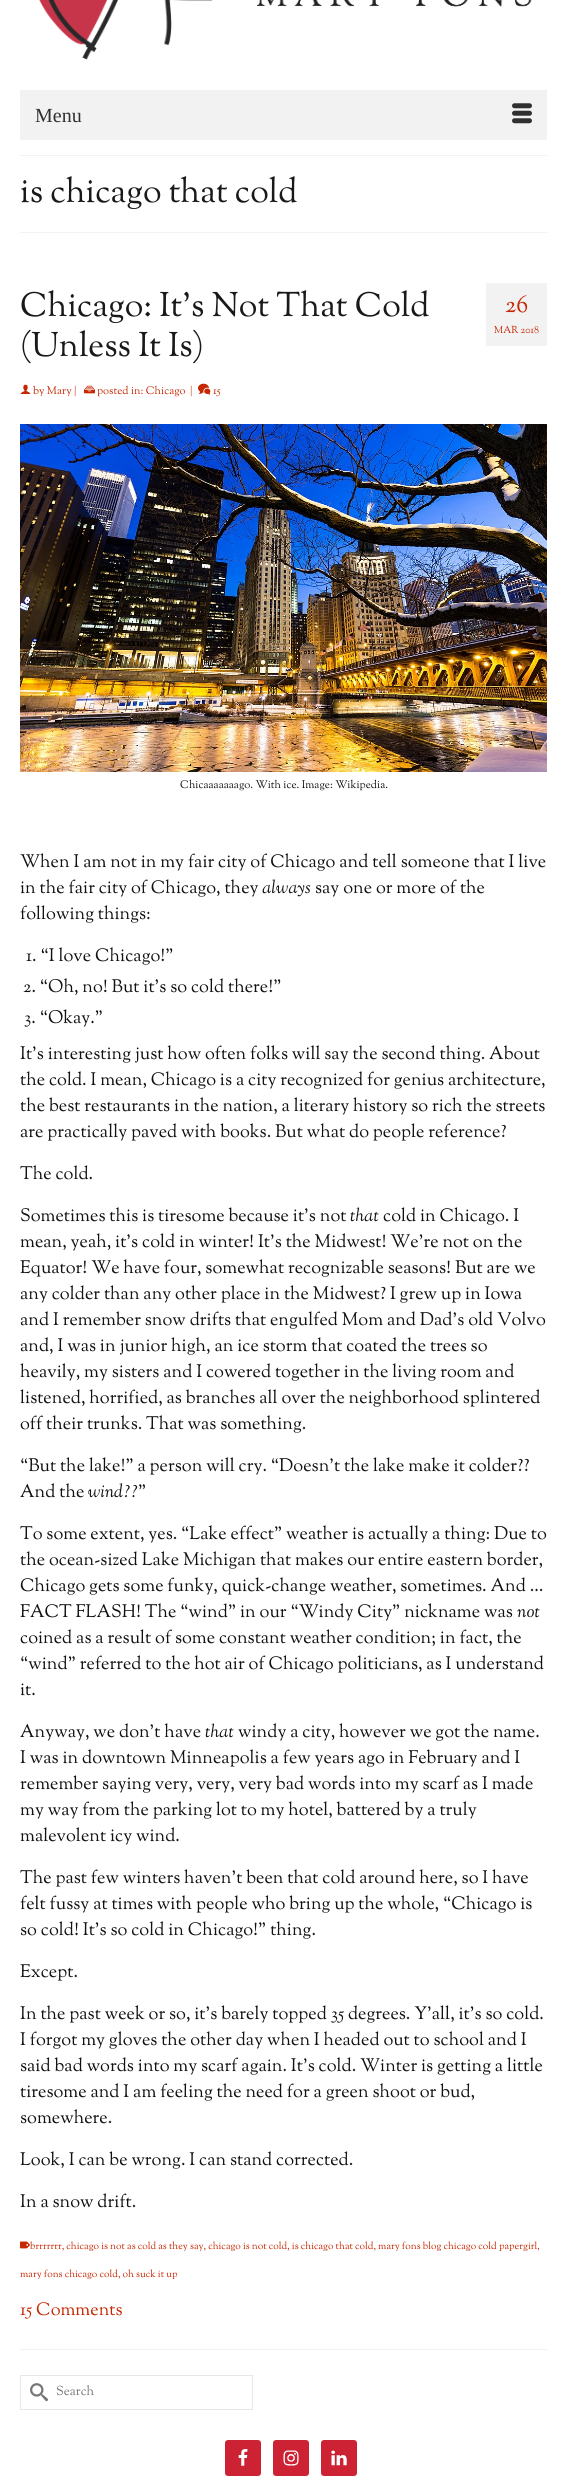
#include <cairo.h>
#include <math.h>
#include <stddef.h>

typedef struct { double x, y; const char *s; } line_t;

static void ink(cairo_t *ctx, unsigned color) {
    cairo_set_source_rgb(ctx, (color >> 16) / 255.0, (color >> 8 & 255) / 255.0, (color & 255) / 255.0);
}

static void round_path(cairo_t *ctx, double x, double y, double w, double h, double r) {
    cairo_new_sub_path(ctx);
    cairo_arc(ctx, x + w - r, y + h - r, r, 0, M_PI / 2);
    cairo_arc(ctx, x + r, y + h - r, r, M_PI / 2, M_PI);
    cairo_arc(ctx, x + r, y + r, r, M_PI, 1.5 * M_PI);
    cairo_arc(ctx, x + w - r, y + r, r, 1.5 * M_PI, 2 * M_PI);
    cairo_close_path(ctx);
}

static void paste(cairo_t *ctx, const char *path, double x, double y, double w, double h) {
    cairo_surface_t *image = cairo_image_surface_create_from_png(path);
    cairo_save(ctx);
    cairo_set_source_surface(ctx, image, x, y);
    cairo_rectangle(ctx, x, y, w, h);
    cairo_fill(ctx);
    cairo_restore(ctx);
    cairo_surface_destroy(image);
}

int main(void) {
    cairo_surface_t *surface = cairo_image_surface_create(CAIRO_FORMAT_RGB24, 567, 2476);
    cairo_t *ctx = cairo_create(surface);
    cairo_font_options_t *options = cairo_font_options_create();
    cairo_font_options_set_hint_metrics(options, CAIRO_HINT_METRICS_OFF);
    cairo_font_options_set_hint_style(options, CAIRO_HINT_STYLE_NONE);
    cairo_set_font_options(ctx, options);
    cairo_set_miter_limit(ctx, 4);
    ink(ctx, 0xFFFFFF);
    cairo_paint(ctx);
    paste(ctx, "media/1.png", 39, 0, 493, 60);
    ink(ctx, 0xF2F2F2);
    cairo_rectangle(ctx, 20, 90, 527, 50);
    cairo_fill(ctx);
    cairo_select_font_face(ctx, "Liberation Serif", CAIRO_FONT_SLANT_NORMAL, CAIRO_FONT_WEIGHT_NORMAL);
    cairo_set_font_size(ctx, 20);
    ink(ctx, 0x303030);
    cairo_move_to(ctx, 35, 122);
    cairo_show_text(ctx, "Menu");
    paste(ctx, "media/2.png", 512, 103, 20, 21);
    ink(ctx, 0xF2F2F2);
    cairo_rectangle(ctx, 20, 155, 527, 1);
    cairo_fill(ctx);
    cairo_rectangle(ctx, 20, 232, 527, 1);
    cairo_fill(ctx);
    cairo_select_font_face(ctx, "Sorts Mill Goudy", CAIRO_FONT_SLANT_NORMAL, CAIRO_FONT_WEIGHT_NORMAL);
    cairo_set_font_size(ctx, 34);
    ink(ctx, 0x191919);
    {
        static const line_t items[] = {
            {20, 202, "is chicago that cold"},
            {20, 316, "Chicago: It’s Not That Cold"},
            {20, 356, "(Unless It Is)"},
        };
        for (size_t i = 0; i < sizeof items / sizeof *items; i++) {
            cairo_move_to(ctx, items[i].x, items[i].y);
            cairo_show_text(ctx, items[i].s);
        }
    }
    paste(ctx, "media/3.png", 20, 384, 11, 10);
    cairo_set_font_size(ctx, 11);
    ink(ctx, 0xC62601);
    cairo_move_to(ctx, 33, 394);
    cairo_show_text(ctx, "by Mary |");
    paste(ctx, "media/4.png", 84, 385, 11, 9);
    cairo_move_to(ctx, 97, 394);
    cairo_show_text(ctx, "posted in: Chicago");
    cairo_move_to(ctx, 190, 394);
    cairo_show_text(ctx, "|");
    paste(ctx, "media/5.png", 198, 383, 13, 12);
    cairo_move_to(ctx, 213, 394);
    cairo_show_text(ctx, "15");
    ink(ctx, 0xF2F2F2);
    cairo_rectangle(ctx, 486, 283, 61, 63);
    cairo_fill(ctx);
    cairo_set_font_size(ctx, 24);
    ink(ctx, 0xC62601);
    cairo_move_to(ctx, 505, 312);
    cairo_show_text(ctx, "26");
    cairo_set_font_size(ctx, 10);
    cairo_move_to(ctx, 494, 333);
    cairo_show_text(ctx, "MAR 2018");
    paste(ctx, "media/6.png", 20, 424, 527, 348);
    cairo_set_font_size(ctx, 11);
    ink(ctx, 0x111111);
    cairo_move_to(ctx, 180, 788);
    cairo_show_text(ctx, "Chicaaaaaaago. With ice. Image: Wikipedia.");
    cairo_set_font_size(ctx, 18);
    cairo_move_to(ctx, 20, 867);
    cairo_show_text(ctx, "When I am not in my fair city of Chicago and tell someone that I live");
    cairo_move_to(ctx, 20, 893);
    cairo_show_text(ctx, "in the fair city of Chicago, they");
    cairo_select_font_face(ctx, "Sorts Mill Goudy", CAIRO_FONT_SLANT_ITALIC, CAIRO_FONT_WEIGHT_NORMAL);
    cairo_move_to(ctx, 262, 893);
    cairo_show_text(ctx, "always");
    cairo_select_font_face(ctx, "Sorts Mill Goudy", CAIRO_FONT_SLANT_NORMAL, CAIRO_FONT_WEIGHT_NORMAL);
    {
        static const line_t items[] = {
            {315, 893, "say one or more of the"},
            {20, 919, "following things:"},
            {26, 961, "1. “I love Chicago!”"},
            {23, 992, "2. “Oh, no! But it’s so cold there!”"},
            {24, 1023, "3. “Okay.”"},
            {20, 1059, "It’s interesting just how often folks will say the second thing. About"},
            {20, 1085, "the cold. I mean, Chicago is a city recognized for genius architecture,"},
            {20, 1111, "the best restaurants in the nation, a literary history so rich the streets"},
            {20, 1137, "are practically paved with books. But what do people reference?"},
            {20, 1179, "The cold."},
            {20, 1221, "Sometimes this is tiresome because it’s not"},
        };
        for (size_t i = 0; i < sizeof items / sizeof *items; i++) {
            cairo_move_to(ctx, items[i].x, items[i].y);
            cairo_show_text(ctx, items[i].s);
        }
    }
    cairo_select_font_face(ctx, "Sorts Mill Goudy", CAIRO_FONT_SLANT_ITALIC, CAIRO_FONT_WEIGHT_NORMAL);
    cairo_move_to(ctx, 350, 1221);
    cairo_show_text(ctx, "that");
    cairo_select_font_face(ctx, "Sorts Mill Goudy", CAIRO_FONT_SLANT_NORMAL, CAIRO_FONT_WEIGHT_NORMAL);
    {
        static const line_t items[] = {
            {383, 1221, "cold in Chicago. I"},
            {20, 1247, "mean, yeah, it’s cold in winter! It’s the Midwest! We’re not on the"},
            {20, 1273, "Equator! We have four, somewhat recognizable seasons! But are we"},
            {20, 1299, "any colder than any other place in the Midwest? I grew up in Iowa"},
            {20, 1325, "and I remember snow drifts that engulfed Mom and Dad’s old Volvo"},
            {20, 1351, "and, I was in junior high, an ice storm that coated the trees so"},
            {20, 1377, "heavily, my sisters and I cowered together in the living room and"},
            {20, 1403, "listened, horrified, as branches all over the neighborhood splintered"},
            {20, 1429, "off their trunks. That was something."},
            {20, 1471, "“But the lake!” a person will cry. “Doesn’t the lake make it colder?\077"},
            {20, 1497, "And the"},
        };
        for (size_t i = 0; i < sizeof items / sizeof *items; i++) {
            cairo_move_to(ctx, items[i].x, items[i].y);
            cairo_show_text(ctx, items[i].s);
        }
    }
    cairo_select_font_face(ctx, "Sorts Mill Goudy", CAIRO_FONT_SLANT_ITALIC, CAIRO_FONT_WEIGHT_NORMAL);
    cairo_move_to(ctx, 88, 1497);
    cairo_show_text(ctx, "wind?\077");
    cairo_select_font_face(ctx, "Sorts Mill Goudy", CAIRO_FONT_SLANT_NORMAL, CAIRO_FONT_WEIGHT_NORMAL);
    {
        static const line_t items[] = {
            {138, 1497, "”"},
            {20, 1539, "To some extent, yes. “Lake effect” weather is actually a thing: Due to"},
            {20, 1565, "the ocean-sized Lake Michigan that makes our entire eastern border,"},
            {20, 1591, "Chicago gets some funky, quick-change weather, sometimes. And …"},
            {20, 1617, "FACT FLASH! The “wind” in our “Windy City” nickname was"},
        };
        for (size_t i = 0; i < sizeof items / sizeof *items; i++) {
            cairo_move_to(ctx, items[i].x, items[i].y);
            cairo_show_text(ctx, items[i].s);
        }
    }
    cairo_select_font_face(ctx, "Sorts Mill Goudy", CAIRO_FONT_SLANT_ITALIC, CAIRO_FONT_WEIGHT_NORMAL);
    cairo_move_to(ctx, 517, 1617);
    cairo_show_text(ctx, "not");
    cairo_select_font_face(ctx, "Sorts Mill Goudy", CAIRO_FONT_SLANT_NORMAL, CAIRO_FONT_WEIGHT_NORMAL);
    {
        static const line_t items[] = {
            {20, 1643, "coined as a result of some constant weather condition; in fact, the"},
            {20, 1669, "“wind” referred to the hot air of Chicago politicians, as I understand"},
            {20, 1695, "it."},
            {20, 1737, "Anyway, we don’t have"},
        };
        for (size_t i = 0; i < sizeof items / sizeof *items; i++) {
            cairo_move_to(ctx, items[i].x, items[i].y);
            cairo_show_text(ctx, items[i].s);
        }
    }
    cairo_select_font_face(ctx, "Sorts Mill Goudy", CAIRO_FONT_SLANT_ITALIC, CAIRO_FONT_WEIGHT_NORMAL);
    cairo_move_to(ctx, 205, 1737);
    cairo_show_text(ctx, "that");
    cairo_select_font_face(ctx, "Sorts Mill Goudy", CAIRO_FONT_SLANT_NORMAL, CAIRO_FONT_WEIGHT_NORMAL);
    {
        static const line_t items[] = {
            {238, 1737, "windy a city, however we got the name."},
            {20, 1763, "I was in downtown Minneapolis a few years ago in February and I"},
            {20, 1789, "remember saying very, very, very bad words into my scarf as I made"},
            {20, 1815, "my way from the parking lot to my hotel, battered by a truly"},
            {20, 1841, "malevolent icy wind."},
            {20, 1883, "The past few winters haven’t been that cold around here, so I have"},
            {20, 1909, "felt fussy at times with people who bring up the whole, “Chicago is"},
            {20, 1935, "so cold! It’s so cold in Chicago!” thing."},
            {20, 1977, "Except."},
            {20, 2019, "In the past week or so, it’s barely topped 35 degrees. Y’all, it’s so cold."},
            {20, 2045, "I forgot my gloves the other day when I headed out to school and I"},
            {20, 2071, "said bad words into my scarf again. It’s cold. Winter is getting a little"},
            {20, 2097, "tiresome and I am feeling the need for a green shoot or bud,"},
            {20, 2123, "somewhere."},
            {20, 2165, "Look, I can be wrong. I can stand corrected."},
            {20, 2207, "In a snow drift."},
        };
        for (size_t i = 0; i < sizeof items / sizeof *items; i++) {
            cairo_move_to(ctx, items[i].x, items[i].y);
            cairo_show_text(ctx, items[i].s);
        }
    }
    ink(ctx, 0xF2F2F2);
    cairo_rectangle(ctx, 20, 2349, 527, 1);
    cairo_fill(ctx);
    paste(ctx, "media/7.png", 20, 2241, 10, 8);
    cairo_set_font_size(ctx, 10);
    ink(ctx, 0xC62601);
    cairo_move_to(ctx, 30, 2249);
    cairo_show_text(ctx, "brrrrrrr, chicago is not as cold as they say, chicago is not cold, is chicago that cold, mary fons blog chicago cold papergirl,");
    cairo_move_to(ctx, 20, 2277);
    cairo_show_text(ctx, "mary fons chicago cold, oh suck it up");
    cairo_set_font_size(ctx, 18);
    cairo_move_to(ctx, 20, 2315);
    cairo_show_text(ctx, "15 Comments");
    cairo_rectangle(ctx, 20.5, 2375.5, 232, 34);
    ink(ctx, 0xE7E7E7);
    cairo_set_line_width(ctx, 1);
    cairo_stroke(ctx);
    paste(ctx, "media/8.png", 30, 2383, 18, 19);
    cairo_set_font_size(ctx, 13);
    ink(ctx, 0x757575);
    cairo_move_to(ctx, 56, 2395);
    cairo_show_text(ctx, "Search");
    ink(ctx, 0xCC2233);
    round_path(ctx, 225, 2440, 36, 36, 3);
    cairo_fill(ctx);
    paste(ctx, "media/9.png", 238, 2449, 10, 17);
    round_path(ctx, 273, 2440, 36, 36, 3);
    cairo_fill(ctx);
    paste(ctx, "media/10.png", 283, 2450, 16, 16);
    round_path(ctx, 321, 2440, 36, 36, 3);
    cairo_fill(ctx);
    paste(ctx, "media/11.png", 331, 2450, 16, 16);
    cairo_surface_write_to_png(surface, "image.png");
    cairo_font_options_destroy(options);
    cairo_destroy(ctx);
    cairo_surface_destroy(surface);
    return 0;
}
